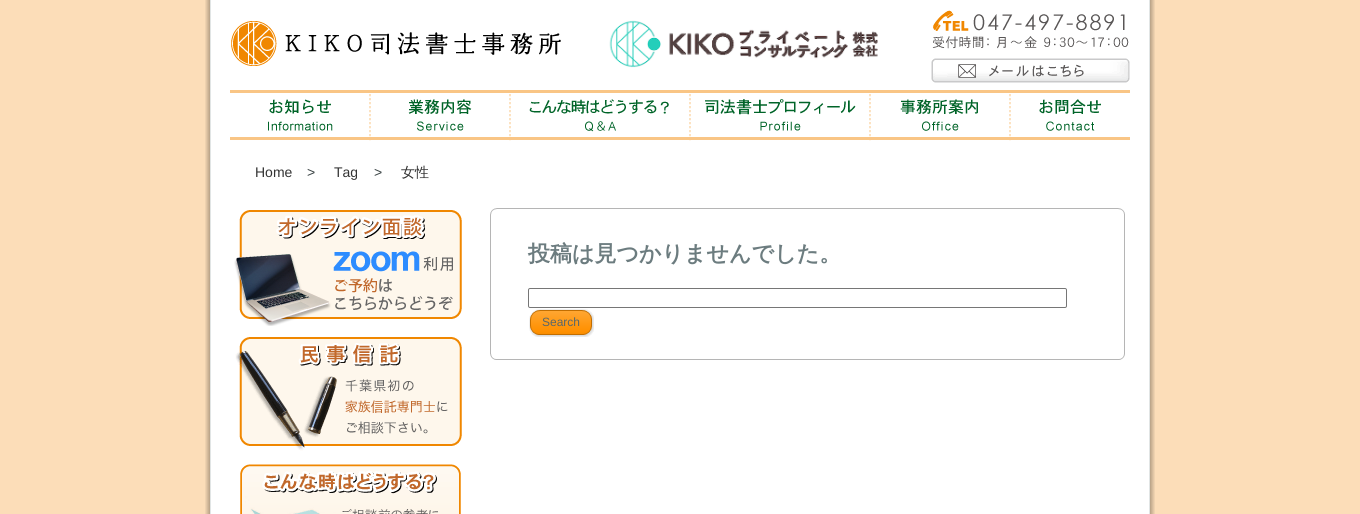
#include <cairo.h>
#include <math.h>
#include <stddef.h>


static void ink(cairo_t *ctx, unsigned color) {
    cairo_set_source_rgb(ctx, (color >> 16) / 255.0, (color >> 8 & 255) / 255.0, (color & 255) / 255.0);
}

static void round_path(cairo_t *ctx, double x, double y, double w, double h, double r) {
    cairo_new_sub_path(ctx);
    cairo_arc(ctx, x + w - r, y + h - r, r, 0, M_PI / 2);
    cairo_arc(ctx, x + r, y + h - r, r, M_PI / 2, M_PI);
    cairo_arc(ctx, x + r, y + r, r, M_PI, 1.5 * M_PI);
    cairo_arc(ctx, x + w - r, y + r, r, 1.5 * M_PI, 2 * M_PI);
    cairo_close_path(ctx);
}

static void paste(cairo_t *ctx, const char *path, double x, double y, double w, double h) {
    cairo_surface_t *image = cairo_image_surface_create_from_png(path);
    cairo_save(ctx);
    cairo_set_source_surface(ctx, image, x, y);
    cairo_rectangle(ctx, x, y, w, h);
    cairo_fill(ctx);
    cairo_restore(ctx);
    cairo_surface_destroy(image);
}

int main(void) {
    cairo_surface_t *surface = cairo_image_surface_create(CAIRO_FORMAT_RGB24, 1360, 514);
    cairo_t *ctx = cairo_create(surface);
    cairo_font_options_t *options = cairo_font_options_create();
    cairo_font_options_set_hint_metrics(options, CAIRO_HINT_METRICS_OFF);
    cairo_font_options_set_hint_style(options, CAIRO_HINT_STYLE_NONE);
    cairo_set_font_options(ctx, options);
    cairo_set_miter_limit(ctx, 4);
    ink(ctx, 0xFCDDB8);
    cairo_paint(ctx);
    paste(ctx, "media/1.png", 205, 0, 36, 15);
    ink(ctx, 0xFFFFFF);
    cairo_rectangle(ctx, 241, 0, 878, 514);
    cairo_fill(ctx);
    paste(ctx, "media/2.png", 1119, 0, 36, 15);
    paste(ctx, "media/3.png", 205, 15, 36, 499);
    paste(ctx, "media/4.png", 231, 21, 330, 45);
    paste(ctx, "media/5.png", 609, 20, 269, 48);
    paste(ctx, "media/23.png", 1119, 15, 36, 499);
    paste(ctx, "media/6.png", 932, 10, 197, 39);
    paste(ctx, "media/7.png", 931, 58, 199, 25);
    paste(ctx, "media/8.png", 230, 90, 140, 51);
    paste(ctx, "media/9.png", 370, 90, 140, 51);
    paste(ctx, "media/10.png", 510, 90, 180, 51);
    paste(ctx, "media/11.png", 690, 90, 180, 51);
    paste(ctx, "media/12.png", 870, 90, 140, 51);
    paste(ctx, "media/13.png", 1010, 90, 120, 51);
    cairo_select_font_face(ctx, "Liberation Sans", CAIRO_FONT_SLANT_NORMAL, CAIRO_FONT_WEIGHT_NORMAL);
    cairo_set_font_size(ctx, 14);
    ink(ctx, 0x333333);
    cairo_move_to(ctx, 255, 177);
    cairo_show_text(ctx, "Home");
    ink(ctx, 0x3B4445);
    cairo_move_to(ctx, 307, 177);
    cairo_show_text(ctx, ">");
    ink(ctx, 0x333333);
    cairo_move_to(ctx, 334, 177);
    cairo_show_text(ctx, "Tag");
    ink(ctx, 0x3B4445);
    cairo_move_to(ctx, 374, 177);
    cairo_show_text(ctx, ">");
    cairo_select_font_face(ctx, "WenQuanYi Zen Hei Medium", CAIRO_FONT_SLANT_NORMAL, CAIRO_FONT_WEIGHT_NORMAL);
    ink(ctx, 0x333333);
    cairo_move_to(ctx, 401, 177);
    cairo_show_text(ctx, "女性");
    paste(ctx, "media/14.png", 234, 210, 228, 116);
    paste(ctx, "media/15.png", 235, 337, 227, 114);
    paste(ctx, "media/16.png", 240, 464, 221, 50);
    paste(ctx, "media/17.png", 490, 208, 7, 7);
    ink(ctx, 0xB5B5B5);
    cairo_rectangle(ctx, 497, 208, 621, 1);
    cairo_fill(ctx);
    paste(ctx, "media/18.png", 1118, 208, 7, 7);
    cairo_rectangle(ctx, 490, 215, 1, 138);
    cairo_fill(ctx);
    cairo_select_font_face(ctx, "WenQuanYi Zen Hei", CAIRO_FONT_SLANT_NORMAL, CAIRO_FONT_WEIGHT_BOLD);
    cairo_set_font_size(ctx, 22);
    ink(ctx, 0x6C7C7F);
    cairo_move_to(ctx, 528, 261);
    cairo_show_text(ctx, "投稿は見つかりませんでした。");
    round_path(ctx, 528.5, 288.5, 538, 19, 1.5);
    ink(ctx, 0x767676);
    cairo_set_line_width(ctx, 1);
    cairo_stroke(ctx);
    paste(ctx, "media/19.png", 529, 309, 51, 28);
    paste(ctx, "media/20.png", 580, 309, 14, 28);
    cairo_select_font_face(ctx, "Liberation Sans", CAIRO_FONT_SLANT_NORMAL, CAIRO_FONT_WEIGHT_NORMAL);
    cairo_set_font_size(ctx, 12);
    ink(ctx, 0x596769);
    cairo_move_to(ctx, 542, 326);
    cairo_show_text(ctx, "Search");
    ink(ctx, 0xB5B5B5);
    cairo_rectangle(ctx, 1124, 215, 1, 138);
    cairo_fill(ctx);
    paste(ctx, "media/21.png", 490, 353, 7, 7);
    cairo_rectangle(ctx, 497, 359, 621, 1);
    cairo_fill(ctx);
    paste(ctx, "media/22.png", 1118, 353, 7, 7);
    cairo_surface_write_to_png(surface, "image.png");
    cairo_font_options_destroy(options);
    cairo_destroy(ctx);
    cairo_surface_destroy(surface);
    return 0;
}
